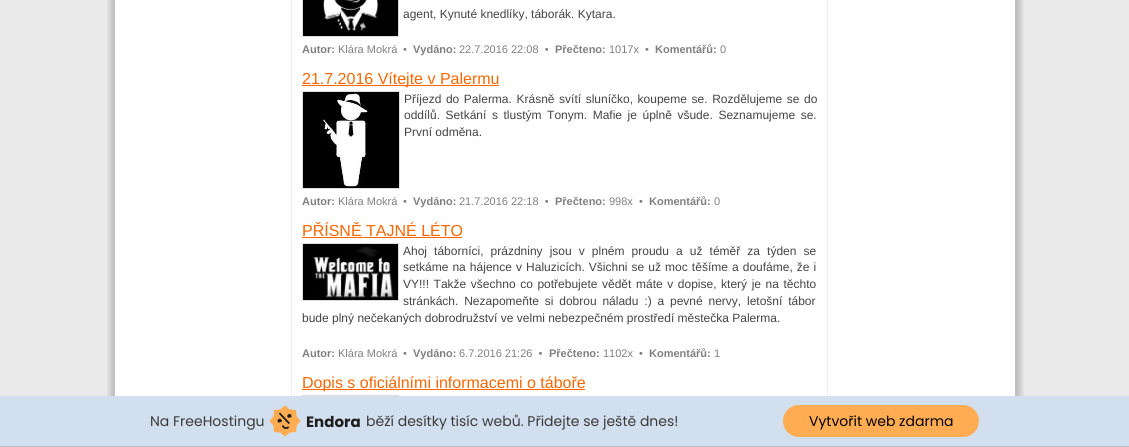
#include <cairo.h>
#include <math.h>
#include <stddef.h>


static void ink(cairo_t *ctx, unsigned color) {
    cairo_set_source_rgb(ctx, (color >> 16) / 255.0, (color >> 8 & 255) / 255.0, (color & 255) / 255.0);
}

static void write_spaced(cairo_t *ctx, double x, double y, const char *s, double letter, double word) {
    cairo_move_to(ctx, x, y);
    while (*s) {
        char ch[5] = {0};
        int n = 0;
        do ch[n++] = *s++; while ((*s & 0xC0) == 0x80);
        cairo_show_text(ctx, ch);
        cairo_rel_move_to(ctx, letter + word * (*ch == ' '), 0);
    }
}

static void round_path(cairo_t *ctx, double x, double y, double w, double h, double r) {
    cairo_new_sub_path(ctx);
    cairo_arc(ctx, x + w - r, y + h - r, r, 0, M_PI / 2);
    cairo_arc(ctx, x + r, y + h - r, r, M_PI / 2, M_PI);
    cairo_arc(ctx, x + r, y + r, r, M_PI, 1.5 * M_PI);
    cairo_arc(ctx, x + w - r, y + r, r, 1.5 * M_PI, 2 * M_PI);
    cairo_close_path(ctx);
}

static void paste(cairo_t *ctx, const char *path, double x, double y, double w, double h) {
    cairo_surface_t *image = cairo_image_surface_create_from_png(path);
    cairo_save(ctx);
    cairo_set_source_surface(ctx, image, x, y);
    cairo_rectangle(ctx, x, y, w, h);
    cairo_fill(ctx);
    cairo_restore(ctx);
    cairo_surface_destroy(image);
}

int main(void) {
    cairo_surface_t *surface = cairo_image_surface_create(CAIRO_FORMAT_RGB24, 1129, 447);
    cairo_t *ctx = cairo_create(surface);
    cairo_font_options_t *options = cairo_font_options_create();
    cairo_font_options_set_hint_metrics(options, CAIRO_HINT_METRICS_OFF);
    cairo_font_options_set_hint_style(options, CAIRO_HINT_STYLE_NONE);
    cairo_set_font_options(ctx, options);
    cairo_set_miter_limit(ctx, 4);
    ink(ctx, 0xEAEAEA);
    cairo_paint(ctx);
    paste(ctx, "media/1.png", 107, 0, 917, 396);
    cairo_rectangle(ctx, 291.5, -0.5, 536, 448);
    ink(ctx, 0xEEEEEE);
    cairo_set_line_width(ctx, 1);
    cairo_stroke(ctx);
    cairo_rectangle(ctx, 302.5, -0.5, 96, 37);
    ink(ctx, 0xDCDCDC);
    cairo_stroke(ctx);
    paste(ctx, "media/2.png", 303, 0, 95, 36);
    cairo_select_font_face(ctx, "Liberation Sans", CAIRO_FONT_SLANT_NORMAL, CAIRO_FONT_WEIGHT_NORMAL);
    cairo_set_font_size(ctx, 12);
    ink(ctx, 0x444444);
    cairo_move_to(ctx, 403, 18);
    cairo_show_text(ctx, "agent, Kynuté knedlíky, táborák. Kytara.");
    cairo_select_font_face(ctx, "Liberation Sans", CAIRO_FONT_SLANT_NORMAL, CAIRO_FONT_WEIGHT_BOLD);
    cairo_set_font_size(ctx, 11);
    ink(ctx, 0x808080);
    cairo_move_to(ctx, 302, 53);
    cairo_show_text(ctx, "Autor:");
    cairo_select_font_face(ctx, "Liberation Sans", CAIRO_FONT_SLANT_NORMAL, CAIRO_FONT_WEIGHT_NORMAL);
    cairo_move_to(ctx, 338, 53);
    cairo_show_text(ctx, "Klára Mokrá");
    cairo_move_to(ctx, 403, 53);
    cairo_show_text(ctx, "•");
    cairo_select_font_face(ctx, "Liberation Sans", CAIRO_FONT_SLANT_NORMAL, CAIRO_FONT_WEIGHT_BOLD);
    cairo_move_to(ctx, 413, 53);
    cairo_show_text(ctx, "Vydáno:");
    cairo_select_font_face(ctx, "Liberation Sans", CAIRO_FONT_SLANT_NORMAL, CAIRO_FONT_WEIGHT_NORMAL);
    cairo_move_to(ctx, 459, 53);
    cairo_show_text(ctx, "22.7.2016 22:08  •");
    cairo_select_font_face(ctx, "Liberation Sans", CAIRO_FONT_SLANT_NORMAL, CAIRO_FONT_WEIGHT_BOLD);
    cairo_move_to(ctx, 555, 53);
    cairo_show_text(ctx, "Přečteno:");
    cairo_select_font_face(ctx, "Liberation Sans", CAIRO_FONT_SLANT_NORMAL, CAIRO_FONT_WEIGHT_NORMAL);
    cairo_move_to(ctx, 609, 53);
    cairo_show_text(ctx, "1017x  •");
    cairo_select_font_face(ctx, "Liberation Sans", CAIRO_FONT_SLANT_NORMAL, CAIRO_FONT_WEIGHT_BOLD);
    cairo_move_to(ctx, 655, 53);
    cairo_show_text(ctx, "Komentářů:");
    cairo_select_font_face(ctx, "Liberation Sans", CAIRO_FONT_SLANT_NORMAL, CAIRO_FONT_WEIGHT_NORMAL);
    cairo_move_to(ctx, 720, 53);
    cairo_show_text(ctx, "0");
    ink(ctx, 0xFE6600);
    cairo_rectangle(ctx, 302, 85, 197, 1);
    cairo_fill(ctx);
    cairo_set_font_size(ctx, 16);
    cairo_move_to(ctx, 302, 84);
    cairo_show_text(ctx, "21.7.2016 Vítejte v Palermu");
    cairo_rectangle(ctx, 302.5, 91.5, 97, 97);
    ink(ctx, 0xDCDCDC);
    cairo_stroke(ctx);
    paste(ctx, "media/3.png", 303, 92, 96, 96);
    cairo_set_font_size(ctx, 12);
    ink(ctx, 0x444444);
    write_spaced(ctx, 404, 103, "Příjezd do Palerma. Krásně svítí sluníčko, koupeme se. Rozdělujeme se do", 0, 1.25);
    write_spaced(ctx, 404, 119, "oddílů. Setkání s tlustým Tonym. Mafie je úplně všude. Seznamujeme se.", 0, 2.25);
    cairo_move_to(ctx, 404, 136);
    cairo_show_text(ctx, "První odměna.");
    cairo_select_font_face(ctx, "Liberation Sans", CAIRO_FONT_SLANT_NORMAL, CAIRO_FONT_WEIGHT_BOLD);
    cairo_set_font_size(ctx, 11);
    ink(ctx, 0x808080);
    cairo_move_to(ctx, 302, 205);
    cairo_show_text(ctx, "Autor:");
    cairo_select_font_face(ctx, "Liberation Sans", CAIRO_FONT_SLANT_NORMAL, CAIRO_FONT_WEIGHT_NORMAL);
    cairo_move_to(ctx, 338, 205);
    cairo_show_text(ctx, "Klára Mokrá");
    cairo_move_to(ctx, 403, 205);
    cairo_show_text(ctx, "•");
    cairo_select_font_face(ctx, "Liberation Sans", CAIRO_FONT_SLANT_NORMAL, CAIRO_FONT_WEIGHT_BOLD);
    cairo_move_to(ctx, 413, 205);
    cairo_show_text(ctx, "Vydáno:");
    cairo_select_font_face(ctx, "Liberation Sans", CAIRO_FONT_SLANT_NORMAL, CAIRO_FONT_WEIGHT_NORMAL);
    cairo_move_to(ctx, 459, 205);
    cairo_show_text(ctx, "21.7.2016 22:18  •");
    cairo_select_font_face(ctx, "Liberation Sans", CAIRO_FONT_SLANT_NORMAL, CAIRO_FONT_WEIGHT_BOLD);
    cairo_move_to(ctx, 555, 205);
    cairo_show_text(ctx, "Přečteno:");
    cairo_select_font_face(ctx, "Liberation Sans", CAIRO_FONT_SLANT_NORMAL, CAIRO_FONT_WEIGHT_NORMAL);
    cairo_move_to(ctx, 609, 205);
    cairo_show_text(ctx, "998x  •");
    cairo_select_font_face(ctx, "Liberation Sans", CAIRO_FONT_SLANT_NORMAL, CAIRO_FONT_WEIGHT_BOLD);
    cairo_move_to(ctx, 649, 205);
    cairo_show_text(ctx, "Komentářů:");
    cairo_select_font_face(ctx, "Liberation Sans", CAIRO_FONT_SLANT_NORMAL, CAIRO_FONT_WEIGHT_NORMAL);
    cairo_move_to(ctx, 714, 205);
    cairo_show_text(ctx, "0");
    cairo_set_font_size(ctx, 16);
    ink(ctx, 0xFE6600);
    cairo_move_to(ctx, 302, 236);
    cairo_show_text(ctx, "PŘÍSNĚ TAJNÉ LÉTO");
    cairo_rectangle(ctx, 302, 237, 160, 1);
    cairo_fill(ctx);
    cairo_rectangle(ctx, 302.5, 243.5, 96, 57);
    ink(ctx, 0xDCDCDC);
    cairo_stroke(ctx);
    paste(ctx, "media/4.png", 303, 244, 95, 56);
    cairo_set_font_size(ctx, 12);
    ink(ctx, 0x444444);
    write_spaced(ctx, 403, 255, "Ahoj táborníci, prázdniny jsou v plném proudu a už téměř za týden se", 0, 3.75);
    write_spaced(ctx, 403, 271, "setkáme na hájence v Haluzicích. Všichni se už moc těšíme a doufáme, že i", 0, 0.75);
    write_spaced(ctx, 403, 288, "VY!!! Takže všechno co potřebujete vědět máte v dopise, který je na těchto", 0, 1.25);
    write_spaced(ctx, 403, 305, "stránkách. Nezapomeňte si dobrou náladu :) a pevné nervy, letošní tábor", 0, 2.5);
    cairo_move_to(ctx, 302, 322);
    cairo_show_text(ctx, "bude plný nečekaných dobrodružství ve velmi nebezpečném prostředí městečka Palerma.");
    cairo_select_font_face(ctx, "Liberation Sans", CAIRO_FONT_SLANT_NORMAL, CAIRO_FONT_WEIGHT_BOLD);
    cairo_set_font_size(ctx, 11);
    ink(ctx, 0x808080);
    cairo_move_to(ctx, 302, 357);
    cairo_show_text(ctx, "Autor:");
    cairo_select_font_face(ctx, "Liberation Sans", CAIRO_FONT_SLANT_NORMAL, CAIRO_FONT_WEIGHT_NORMAL);
    cairo_move_to(ctx, 338, 357);
    cairo_show_text(ctx, "Klára Mokrá");
    cairo_move_to(ctx, 403, 357);
    cairo_show_text(ctx, "•");
    cairo_select_font_face(ctx, "Liberation Sans", CAIRO_FONT_SLANT_NORMAL, CAIRO_FONT_WEIGHT_BOLD);
    cairo_move_to(ctx, 413, 357);
    cairo_show_text(ctx, "Vydáno:");
    cairo_select_font_face(ctx, "Liberation Sans", CAIRO_FONT_SLANT_NORMAL, CAIRO_FONT_WEIGHT_NORMAL);
    cairo_move_to(ctx, 459, 357);
    cairo_show_text(ctx, "6.7.2016 21:26  •");
    cairo_select_font_face(ctx, "Liberation Sans", CAIRO_FONT_SLANT_NORMAL, CAIRO_FONT_WEIGHT_BOLD);
    cairo_move_to(ctx, 549, 357);
    cairo_show_text(ctx, "Přečteno:");
    cairo_select_font_face(ctx, "Liberation Sans", CAIRO_FONT_SLANT_NORMAL, CAIRO_FONT_WEIGHT_NORMAL);
    cairo_move_to(ctx, 603, 357);
    cairo_show_text(ctx, "1102x  •");
    cairo_select_font_face(ctx, "Liberation Sans", CAIRO_FONT_SLANT_NORMAL, CAIRO_FONT_WEIGHT_BOLD);
    cairo_move_to(ctx, 649, 357);
    cairo_show_text(ctx, "Komentářů:");
    cairo_select_font_face(ctx, "Liberation Sans", CAIRO_FONT_SLANT_NORMAL, CAIRO_FONT_WEIGHT_NORMAL);
    cairo_move_to(ctx, 714, 357);
    cairo_show_text(ctx, "1");
    ink(ctx, 0xFE6600);
    cairo_rectangle(ctx, 302, 389, 283, 1);
    cairo_fill(ctx);
    cairo_set_font_size(ctx, 16);
    cairo_move_to(ctx, 302, 388);
    cairo_show_text(ctx, "Dopis s oficiálními informacemi o táboře");
    cairo_rectangle(ctx, 302.5, 395.5, 96, 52);
    ink(ctx, 0xDCDCDC);
    cairo_stroke(ctx);
    ink(ctx, 0xD2DFEF);
    cairo_rectangle(ctx, 0, 396, 1129, 50);
    cairo_fill(ctx);
    ink(ctx, 0xBEBFC4);
    cairo_rectangle(ctx, 0, 446, 1129, 1);
    cairo_fill(ctx);
    cairo_select_font_face(ctx, "Poppins", CAIRO_FONT_SLANT_NORMAL, CAIRO_FONT_WEIGHT_NORMAL);
    cairo_set_font_size(ctx, 14);
    ink(ctx, 0x3A3A3A);
    cairo_move_to(ctx, 150, 426);
    cairo_show_text(ctx, "Na FreeHostingu");
    paste(ctx, "media/5.png", 269, 405, 32, 32);
    cairo_select_font_face(ctx, "Poppins", CAIRO_FONT_SLANT_NORMAL, CAIRO_FONT_WEIGHT_BOLD);
    cairo_set_font_size(ctx, 15);
    ink(ctx, 0x1E1E1E);
    cairo_move_to(ctx, 306, 427);
    cairo_show_text(ctx, "Endora");
    cairo_select_font_face(ctx, "Poppins", CAIRO_FONT_SLANT_NORMAL, CAIRO_FONT_WEIGHT_NORMAL);
    cairo_set_font_size(ctx, 14);
    ink(ctx, 0x3A3A3A);
    cairo_move_to(ctx, 366, 426);
    cairo_show_text(ctx, "běží desítky tisíc webů. Přidejte se ještě dnes!");
    ink(ctx, 0xFFAC52);
    round_path(ctx, 783, 405, 196, 32, 16);
    cairo_fill(ctx);
    ink(ctx, 0x000000);
    cairo_move_to(ctx, 809, 426);
    cairo_show_text(ctx, "Vytvořit web zdarma");
    cairo_surface_write_to_png(surface, "image.png");
    cairo_font_options_destroy(options);
    cairo_destroy(ctx);
    cairo_surface_destroy(surface);
    return 0;
}
